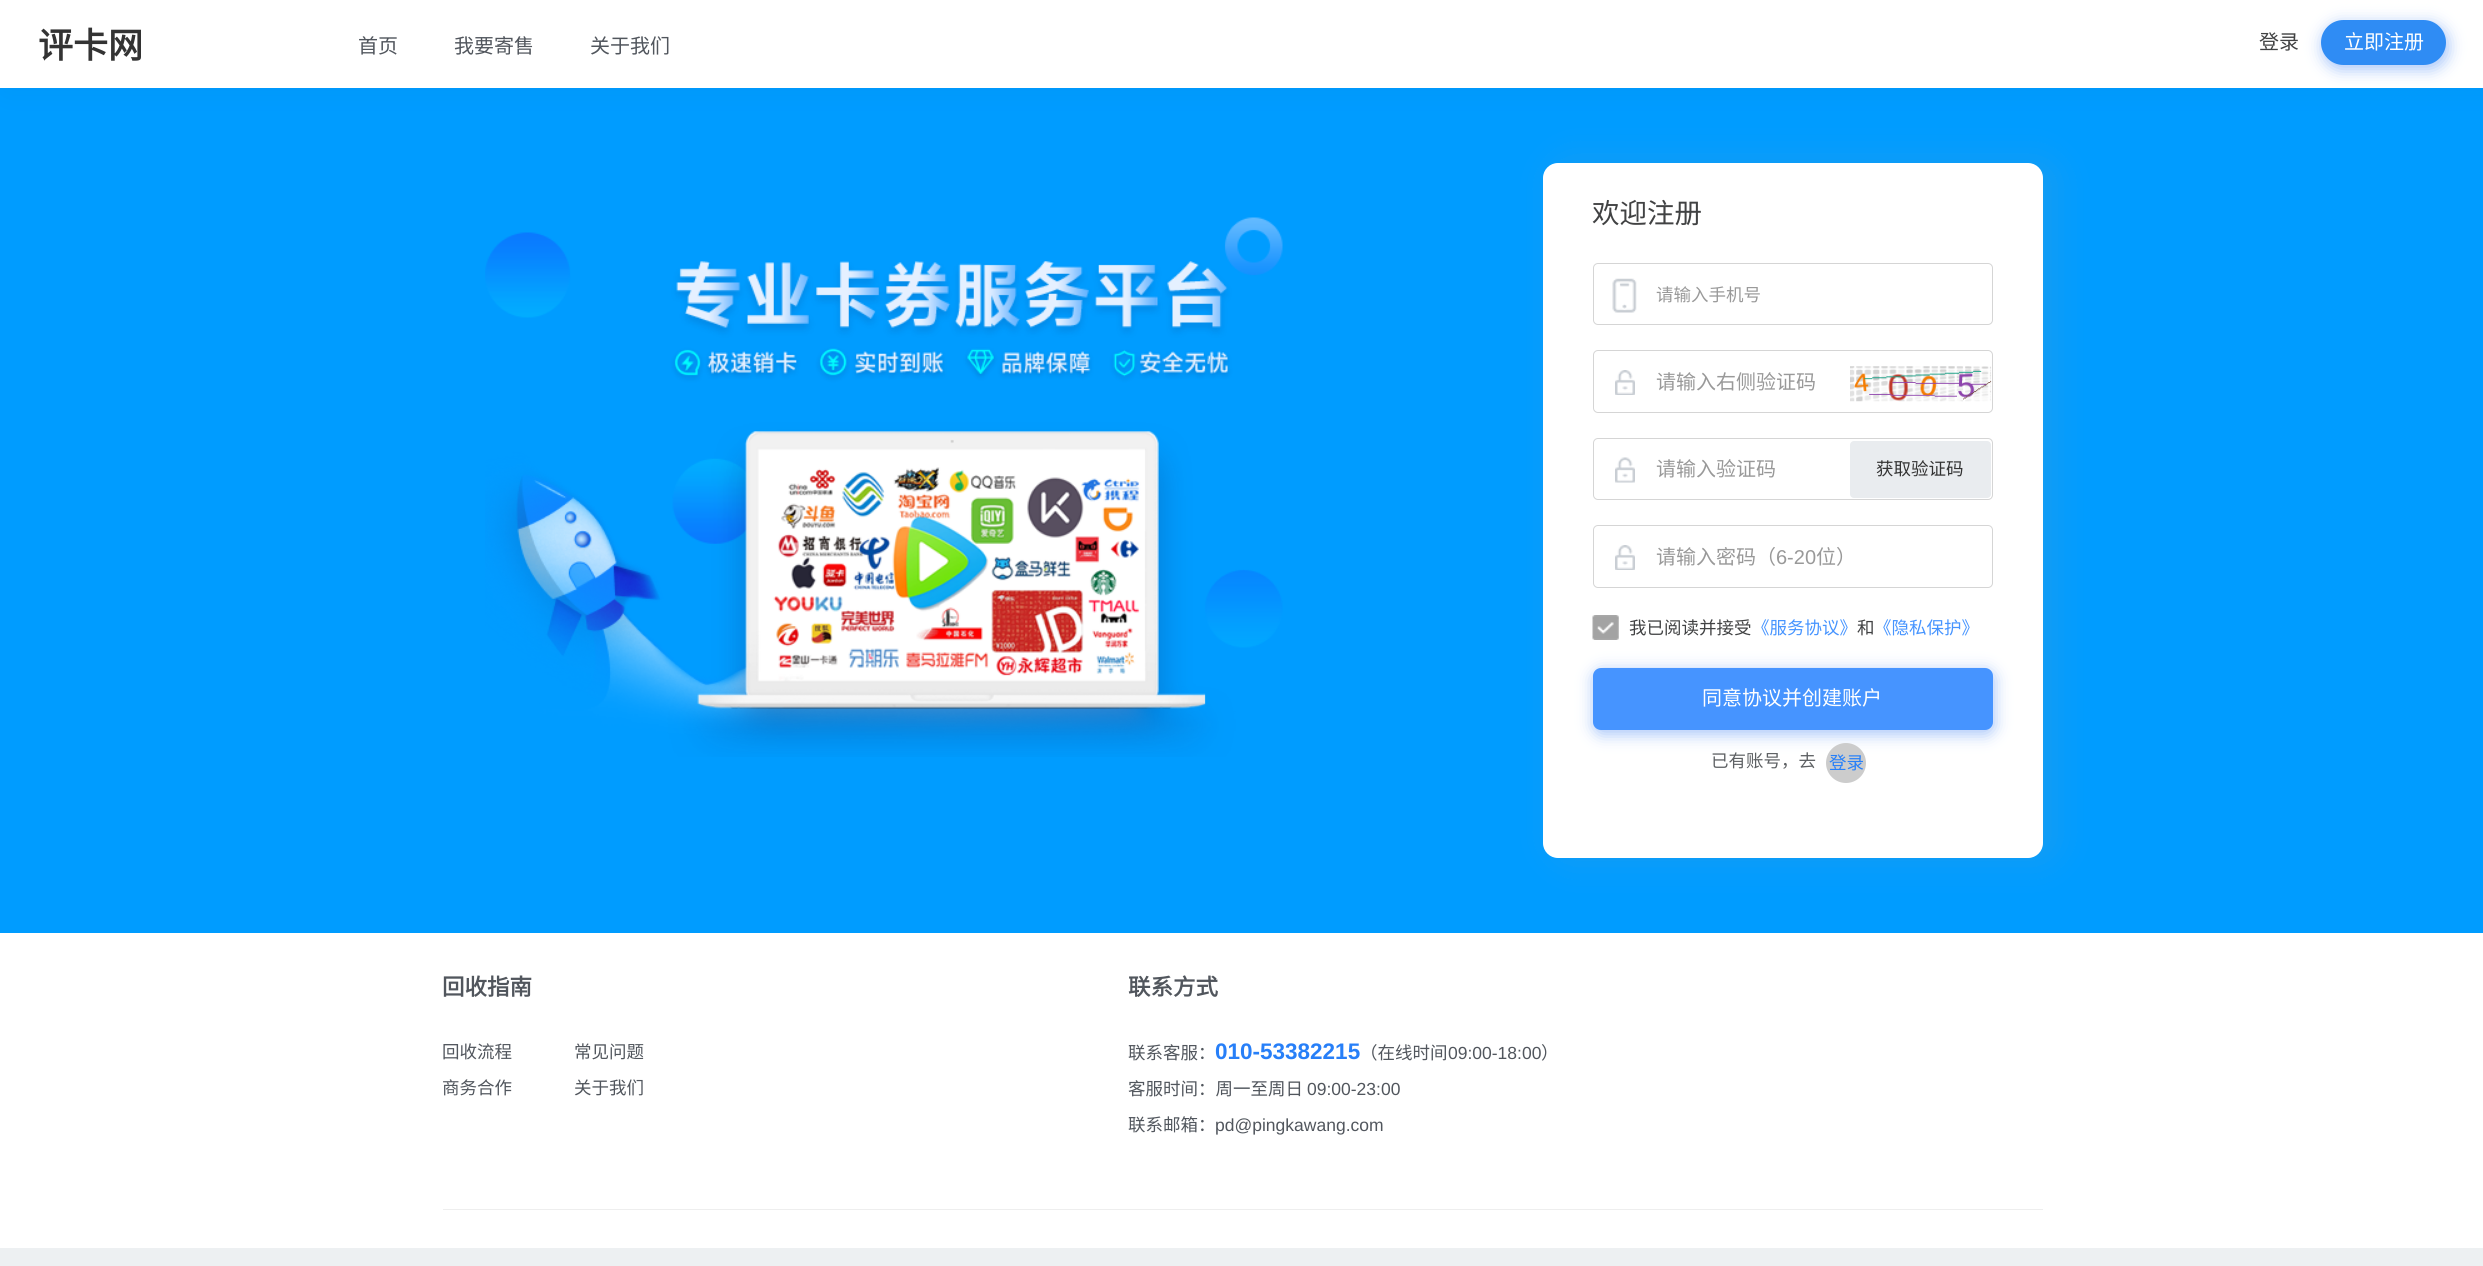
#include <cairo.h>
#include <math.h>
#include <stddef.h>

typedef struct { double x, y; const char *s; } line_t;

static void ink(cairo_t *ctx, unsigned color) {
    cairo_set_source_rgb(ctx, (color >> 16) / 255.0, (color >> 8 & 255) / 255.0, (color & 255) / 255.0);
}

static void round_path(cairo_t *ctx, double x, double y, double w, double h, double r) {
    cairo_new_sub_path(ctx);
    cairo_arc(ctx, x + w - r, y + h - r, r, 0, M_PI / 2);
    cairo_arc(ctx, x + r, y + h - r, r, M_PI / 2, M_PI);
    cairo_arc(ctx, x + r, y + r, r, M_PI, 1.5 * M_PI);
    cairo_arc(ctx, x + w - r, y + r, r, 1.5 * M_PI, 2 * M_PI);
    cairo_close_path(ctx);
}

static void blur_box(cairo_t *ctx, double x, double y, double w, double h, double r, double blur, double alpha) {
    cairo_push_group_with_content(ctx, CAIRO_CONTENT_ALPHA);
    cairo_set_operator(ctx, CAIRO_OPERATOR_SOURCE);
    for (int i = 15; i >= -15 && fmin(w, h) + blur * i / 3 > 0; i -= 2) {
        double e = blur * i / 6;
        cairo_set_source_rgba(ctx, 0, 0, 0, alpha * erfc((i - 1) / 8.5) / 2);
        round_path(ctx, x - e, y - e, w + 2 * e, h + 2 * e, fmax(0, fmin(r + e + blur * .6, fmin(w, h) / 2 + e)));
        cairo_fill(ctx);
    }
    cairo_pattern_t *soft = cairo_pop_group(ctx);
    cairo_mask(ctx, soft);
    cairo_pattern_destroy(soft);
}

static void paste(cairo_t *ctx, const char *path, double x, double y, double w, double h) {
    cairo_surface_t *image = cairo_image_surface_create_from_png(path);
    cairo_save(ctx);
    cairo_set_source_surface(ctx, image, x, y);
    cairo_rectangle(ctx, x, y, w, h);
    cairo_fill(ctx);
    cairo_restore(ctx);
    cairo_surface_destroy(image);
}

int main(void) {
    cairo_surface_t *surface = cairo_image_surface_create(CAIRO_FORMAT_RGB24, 2483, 1266);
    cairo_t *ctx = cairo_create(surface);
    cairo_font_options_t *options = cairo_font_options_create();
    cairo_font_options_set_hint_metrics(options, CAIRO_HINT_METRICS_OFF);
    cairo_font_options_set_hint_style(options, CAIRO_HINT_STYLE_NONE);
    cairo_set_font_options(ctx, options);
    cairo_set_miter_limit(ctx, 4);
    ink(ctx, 0xFFFFFF);
    cairo_paint(ctx);
    ink(ctx, 0x009CFF);
    cairo_rectangle(ctx, 0, 88, 2483, 845);
    cairo_fill(ctx);
    ink(ctx, 0x0A3A9A);
    blur_box(ctx, 6, 0, 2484, 88, 0, 15, 0.08);
    ink(ctx, 0xFFFFFF);
    cairo_rectangle(ctx, 0, 0, 2483, 88);
    cairo_fill(ctx);
    cairo_select_font_face(ctx, "Noto Sans CJK SC", CAIRO_FONT_SLANT_NORMAL, CAIRO_FONT_WEIGHT_BOLD);
    cairo_set_font_size(ctx, 35);
    ink(ctx, 0x333333);
    cairo_move_to(ctx, 38, 58);
    cairo_show_text(ctx, "评卡网");
    cairo_select_font_face(ctx, "Noto Sans CJK SC", CAIRO_FONT_SLANT_NORMAL, CAIRO_FONT_WEIGHT_NORMAL);
    cairo_set_font_size(ctx, 20);
    ink(ctx, 0x51565D);
    {
        static const line_t items[] = {
            {358, 53, "首页"},
            {454, 53, "我要寄售"},
            {590, 53, "关于我们"},
        };
        for (size_t i = 0; i < sizeof items / sizeof *items; i++) {
            cairo_move_to(ctx, items[i].x, items[i].y);
            cairo_show_text(ctx, items[i].s);
        }
    }
    ink(ctx, 0x414243);
    cairo_move_to(ctx, 2259, 49);
    cairo_show_text(ctx, "登录");
    ink(ctx, 0xA4C3F9);
    blur_box(ctx, 2323, 24, 125, 45, 22.5, 8, 1);
    ink(ctx, 0x2F8CF4);
    round_path(ctx, 2321, 20, 125, 45, 22.5);
    cairo_fill(ctx);
    ink(ctx, 0xFFFFFF);
    cairo_move_to(ctx, 2344, 49);
    cairo_show_text(ctx, "立即注册");
    paste(ctx, "media/1.png", 485, 217, 798, 540);
    ink(ctx, 0xA0A0A0);
    blur_box(ctx, 1555, 163, 500, 695, 15, 19, 0.15);
    ink(ctx, 0xFFFFFF);
    round_path(ctx, 1543, 163, 500, 695, 15);
    cairo_fill(ctx);
    cairo_set_font_size(ctx, 27.5);
    ink(ctx, 0x414243);
    cairo_move_to(ctx, 1592, 223);
    cairo_show_text(ctx, "欢迎注册");
    round_path(ctx, 1593.5, 263.5, 399, 61, 4.5);
    ink(ctx, 0xD5D5D5);
    cairo_set_line_width(ctx, 1);
    cairo_stroke(ctx);
    paste(ctx, "media/2.png", 1612, 278, 25, 35);
    cairo_set_font_size(ctx, 17.5);
    ink(ctx, 0x999999);
    cairo_move_to(ctx, 1656, 301);
    cairo_show_text(ctx, "请输入手机号");
    round_path(ctx, 1593.5, 350.5, 399, 62, 4.5);
    ink(ctx, 0xD5D5D5);
    cairo_stroke(ctx);
    paste(ctx, "media/3.png", 1615, 370, 20, 25);
    cairo_set_font_size(ctx, 20);
    ink(ctx, 0x999999);
    cairo_move_to(ctx, 1656, 389);
    cairo_show_text(ctx, "请输入右侧验证码");
    paste(ctx, "media/4.png", 1850, 366, 142, 36);
    round_path(ctx, 1593.5, 438.5, 399, 61, 4.5);
    ink(ctx, 0xD5D5D5);
    cairo_stroke(ctx);
    paste(ctx, "media/5.png", 1615, 457, 20, 26);
    ink(ctx, 0xFFFFFF);
    cairo_rectangle(ctx, 1990, 497, 1, 1);
    cairo_fill(ctx);
    ink(ctx, 0x999999);
    cairo_move_to(ctx, 1656, 476);
    cairo_show_text(ctx, "请输入验证码");
    ink(ctx, 0xE9ECEF);
    round_path(ctx, 1850, 441, 141, 57, 4);
    cairo_fill(ctx);
    cairo_set_font_size(ctx, 17.5);
    ink(ctx, 0x333333);
    cairo_move_to(ctx, 1876, 475);
    cairo_show_text(ctx, "获取验证码");
    round_path(ctx, 1593.5, 525.5, 399, 62, 4.5);
    ink(ctx, 0xD5D5D5);
    cairo_stroke(ctx);
    paste(ctx, "media/3.png", 1615, 545, 20, 25);
    cairo_set_font_size(ctx, 20);
    ink(ctx, 0x999999);
    cairo_move_to(ctx, 1656, 564);
    cairo_show_text(ctx, "请输入密码（");
    cairo_select_font_face(ctx, "Liberation Sans", CAIRO_FONT_SLANT_NORMAL, CAIRO_FONT_WEIGHT_NORMAL);
    cairo_move_to(ctx, 1776, 564);
    cairo_show_text(ctx, "6-20");
    cairo_select_font_face(ctx, "Noto Sans CJK SC", CAIRO_FONT_SLANT_NORMAL, CAIRO_FONT_WEIGHT_NORMAL);
    cairo_move_to(ctx, 1816, 564);
    cairo_show_text(ctx, "位）");
    paste(ctx, "media/6.png", 1592, 615, 27, 25);
    cairo_set_font_size(ctx, 17.5);
    ink(ctx, 0x414243);
    cairo_move_to(ctx, 1629, 634);
    cairo_show_text(ctx, "我已阅读并接受");
    ink(ctx, 0x4694FF);
    cairo_move_to(ctx, 1752, 634);
    cairo_show_text(ctx, "《服务协议》");
    ink(ctx, 0x414243);
    cairo_move_to(ctx, 1857, 634);
    cairo_show_text(ctx, "和");
    ink(ctx, 0x4694FF);
    cairo_move_to(ctx, 1874, 634);
    cairo_show_text(ctx, "《隐私保护》");
    ink(ctx, 0xA4C3F9);
    blur_box(ctx, 1594, 671, 400, 63, 8, 8, 1);
    ink(ctx, 0x4694FF);
    round_path(ctx, 1593, 668, 400, 62, 8);
    cairo_fill(ctx);
    cairo_set_font_size(ctx, 20);
    ink(ctx, 0xFFFFFF);
    cairo_move_to(ctx, 1702, 705);
    cairo_show_text(ctx, "同意协议并创建账户");
    cairo_set_font_size(ctx, 17.5);
    ink(ctx, 0x5D6063);
    cairo_move_to(ctx, 1711, 767);
    cairo_show_text(ctx, "已有账号，去");
    ink(ctx, 0xCCCCCC);
    cairo_new_path(ctx);
    cairo_arc(ctx, 1846, 763, 20, 0, 2 * M_PI);
    cairo_fill(ctx);
    ink(ctx, 0x277FF8);
    cairo_move_to(ctx, 1829, 769);
    cairo_show_text(ctx, "登录");
    ink(ctx, 0xEEEEEE);
    cairo_rectangle(ctx, 443, 1209, 1600, 1);
    cairo_fill(ctx);
    cairo_select_font_face(ctx, "Noto Sans CJK SC", CAIRO_FONT_SLANT_NORMAL, CAIRO_FONT_WEIGHT_BOLD);
    cairo_set_font_size(ctx, 22.5);
    ink(ctx, 0x51565D);
    cairo_move_to(ctx, 442, 995);
    cairo_show_text(ctx, "回收指南");
    cairo_select_font_face(ctx, "Noto Sans CJK SC", CAIRO_FONT_SLANT_NORMAL, CAIRO_FONT_WEIGHT_NORMAL);
    cairo_set_font_size(ctx, 17.5);
    {
        static const line_t items[] = {
            {442, 1058, "回收流程"},
            {442, 1094, "商务合作"},
            {574, 1058, "常见问题"},
            {574, 1094, "关于我们"},
        };
        for (size_t i = 0; i < sizeof items / sizeof *items; i++) {
            cairo_move_to(ctx, items[i].x, items[i].y);
            cairo_show_text(ctx, items[i].s);
        }
    }
    cairo_select_font_face(ctx, "Noto Sans CJK SC", CAIRO_FONT_SLANT_NORMAL, CAIRO_FONT_WEIGHT_BOLD);
    cairo_set_font_size(ctx, 22.5);
    cairo_move_to(ctx, 1128, 995);
    cairo_show_text(ctx, "联系方式");
    cairo_select_font_face(ctx, "Noto Sans CJK SC", CAIRO_FONT_SLANT_NORMAL, CAIRO_FONT_WEIGHT_NORMAL);
    cairo_set_font_size(ctx, 17.5);
    cairo_move_to(ctx, 1128, 1059);
    cairo_show_text(ctx, "联系客服：");
    cairo_select_font_face(ctx, "Liberation Sans", CAIRO_FONT_SLANT_NORMAL, CAIRO_FONT_WEIGHT_BOLD);
    cairo_set_font_size(ctx, 22.5);
    ink(ctx, 0x277FF8);
    cairo_move_to(ctx, 1215, 1059);
    cairo_show_text(ctx, "010-53382215");
    cairo_select_font_face(ctx, "Noto Sans CJK SC", CAIRO_FONT_SLANT_NORMAL, CAIRO_FONT_WEIGHT_NORMAL);
    cairo_set_font_size(ctx, 17.5);
    ink(ctx, 0x51565D);
    cairo_move_to(ctx, 1360, 1059);
    cairo_show_text(ctx, "（在线时间");
    cairo_select_font_face(ctx, "Liberation Sans", CAIRO_FONT_SLANT_NORMAL, CAIRO_FONT_WEIGHT_NORMAL);
    cairo_move_to(ctx, 1448, 1059);
    cairo_show_text(ctx, "09:00-18:00");
    cairo_select_font_face(ctx, "Noto Sans CJK SC", CAIRO_FONT_SLANT_NORMAL, CAIRO_FONT_WEIGHT_NORMAL);
    cairo_move_to(ctx, 1541, 1059);
    cairo_show_text(ctx, "）");
    cairo_move_to(ctx, 1128, 1095);
    cairo_show_text(ctx, "客服时间：周一至周日");
    cairo_select_font_face(ctx, "Liberation Sans", CAIRO_FONT_SLANT_NORMAL, CAIRO_FONT_WEIGHT_NORMAL);
    cairo_move_to(ctx, 1307, 1095);
    cairo_show_text(ctx, "09:00-23:00");
    cairo_select_font_face(ctx, "Noto Sans CJK SC", CAIRO_FONT_SLANT_NORMAL, CAIRO_FONT_WEIGHT_NORMAL);
    cairo_move_to(ctx, 1128, 1131);
    cairo_show_text(ctx, "联系邮箱：");
    cairo_select_font_face(ctx, "Liberation Sans", CAIRO_FONT_SLANT_NORMAL, CAIRO_FONT_WEIGHT_NORMAL);
    cairo_move_to(ctx, 1215, 1131);
    cairo_show_text(ctx, "pd@pingkawang.com");
    ink(ctx, 0xEDF0F2);
    cairo_rectangle(ctx, 0, 1248, 2483, 18);
    cairo_fill(ctx);
    cairo_surface_write_to_png(surface, "image.png");
    cairo_font_options_destroy(options);
    cairo_destroy(ctx);
    cairo_surface_destroy(surface);
    return 0;
}
